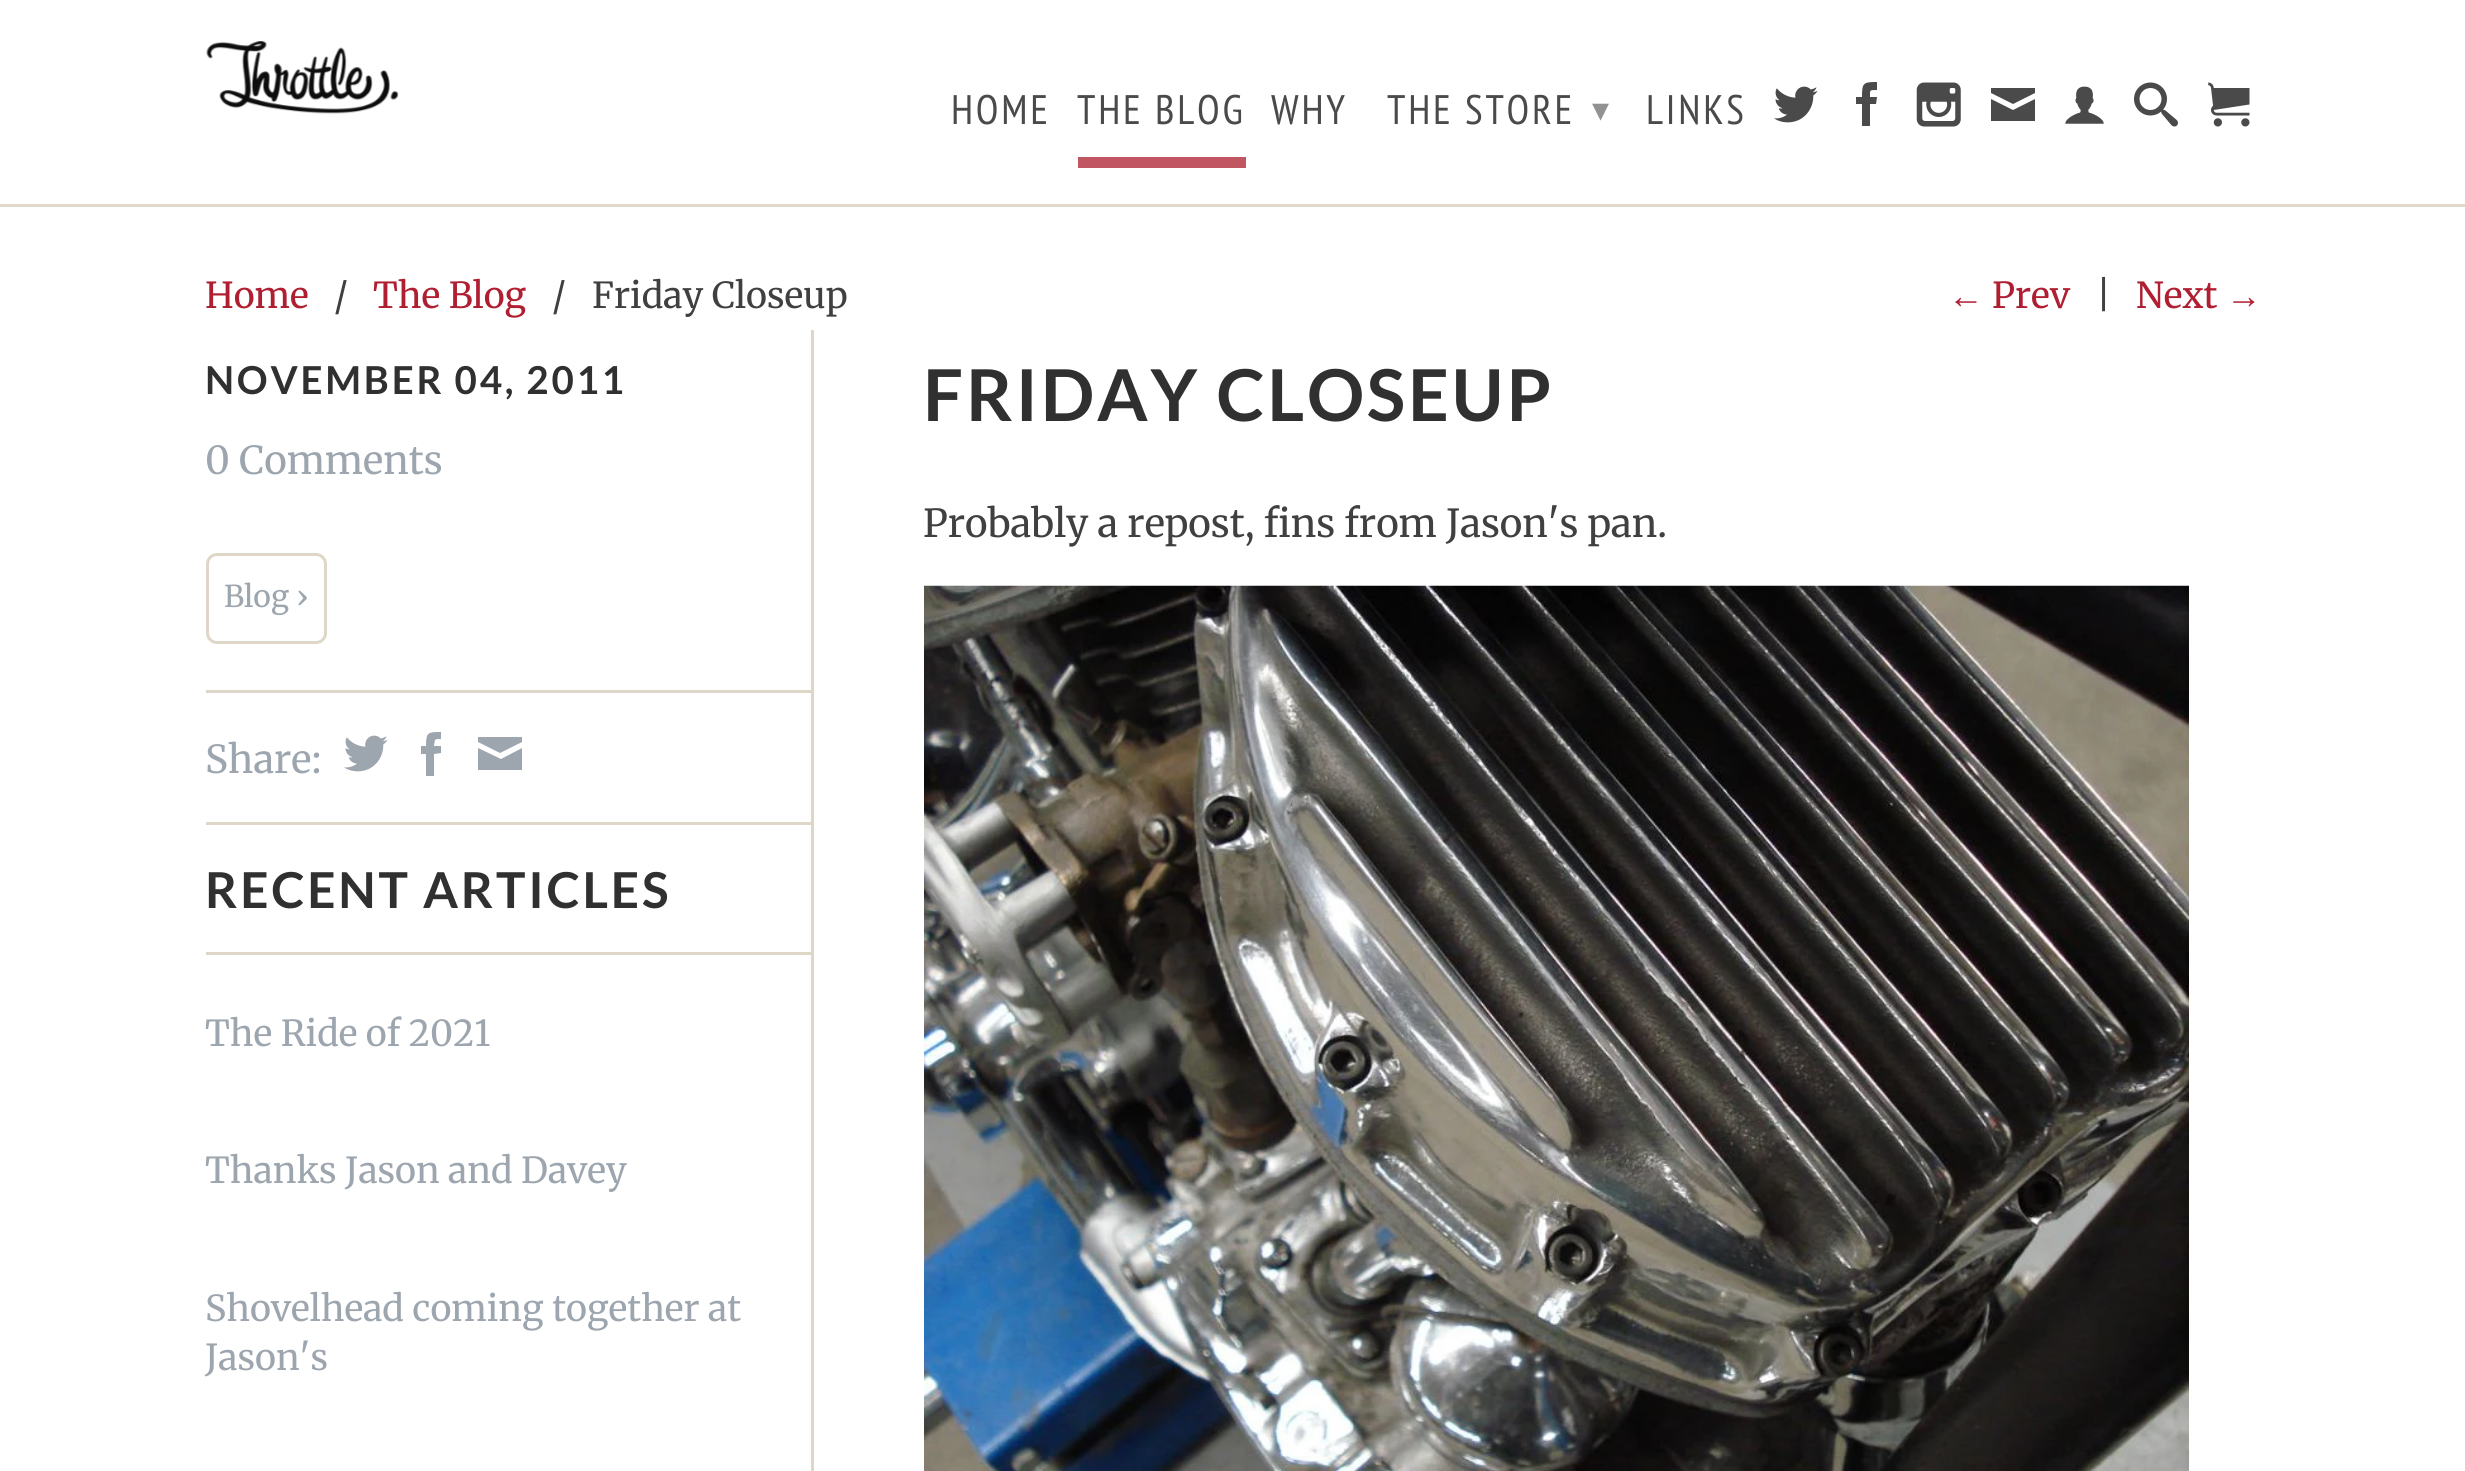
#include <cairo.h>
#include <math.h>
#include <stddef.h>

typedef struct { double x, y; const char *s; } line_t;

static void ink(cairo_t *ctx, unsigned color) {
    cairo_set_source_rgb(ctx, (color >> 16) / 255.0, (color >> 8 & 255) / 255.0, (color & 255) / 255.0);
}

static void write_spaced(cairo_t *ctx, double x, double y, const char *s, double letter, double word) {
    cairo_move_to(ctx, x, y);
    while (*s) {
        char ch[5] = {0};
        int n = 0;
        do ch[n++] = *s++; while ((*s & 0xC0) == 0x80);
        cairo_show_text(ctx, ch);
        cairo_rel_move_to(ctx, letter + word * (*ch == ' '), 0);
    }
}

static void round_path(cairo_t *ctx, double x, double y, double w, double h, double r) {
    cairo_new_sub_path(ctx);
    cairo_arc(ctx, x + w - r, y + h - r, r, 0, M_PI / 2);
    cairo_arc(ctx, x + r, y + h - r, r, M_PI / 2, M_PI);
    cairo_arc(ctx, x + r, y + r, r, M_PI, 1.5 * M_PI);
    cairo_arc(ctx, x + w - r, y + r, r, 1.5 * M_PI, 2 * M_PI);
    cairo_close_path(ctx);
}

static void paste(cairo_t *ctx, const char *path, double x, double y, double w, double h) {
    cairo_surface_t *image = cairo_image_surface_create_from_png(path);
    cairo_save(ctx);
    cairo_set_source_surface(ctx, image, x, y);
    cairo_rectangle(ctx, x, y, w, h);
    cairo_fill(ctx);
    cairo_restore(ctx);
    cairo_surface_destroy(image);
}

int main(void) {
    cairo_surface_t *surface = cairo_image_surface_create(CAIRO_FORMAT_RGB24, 2465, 1471);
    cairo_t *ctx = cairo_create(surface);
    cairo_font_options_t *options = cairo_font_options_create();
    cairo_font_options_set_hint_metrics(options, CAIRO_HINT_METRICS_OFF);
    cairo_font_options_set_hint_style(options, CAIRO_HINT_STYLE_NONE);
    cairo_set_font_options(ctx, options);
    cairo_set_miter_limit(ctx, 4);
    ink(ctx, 0xFFFFFF);
    cairo_paint(ctx);
    ink(ctx, 0xE0D8CA);
    cairo_rectangle(ctx, 0, 204, 2465, 3);
    cairo_fill(ctx);
    paste(ctx, "media/1.png", 206, 41, 193, 73);
    cairo_select_font_face(ctx, "PT Sans Narrow", CAIRO_FONT_SLANT_NORMAL, CAIRO_FONT_WEIGHT_NORMAL);
    cairo_set_font_size(ctx, 41.25);
    ink(ctx, 0x4A4A4A);
    write_spaced(ctx, 951, 124, "HOME", 2.75, 0);
    write_spaced(ctx, 1077, 124, "THE BLOG", 2.75, 0);
    ink(ctx, 0xC25562);
    cairo_rectangle(ctx, 1078, 157, 168, 11);
    cairo_fill(ctx);
    ink(ctx, 0x4A4A4A);
    write_spaced(ctx, 1271, 124, "WHY", 2.75, 0);
    write_spaced(ctx, 1387, 124, "THE STORE", 2.75, 0);
    cairo_select_font_face(ctx, "DejaVu Sans", CAIRO_FONT_SLANT_NORMAL, CAIRO_FONT_WEIGHT_NORMAL);
    cairo_set_font_size(ctx, 34);
    ink(ctx, 0x929292);
    write_spaced(ctx, 1592, 121, "▾", 2.75, 0);
    cairo_select_font_face(ctx, "PT Sans Narrow", CAIRO_FONT_SLANT_NORMAL, CAIRO_FONT_WEIGHT_NORMAL);
    cairo_set_font_size(ctx, 41.25);
    ink(ctx, 0x4A4A4A);
    write_spaced(ctx, 1646, 124, "LINKS", 2.75, 0);
    paste(ctx, "media/2.png", 1774, 86, 44, 37);
    cairo_new_path(ctx);
    cairo_move_to(ctx, 1870, 126);
    cairo_line_to(ctx, 1870, 104);
    cairo_line_to(ctx, 1876, 104);
    cairo_line_to(ctx, 1877, 97);
    cairo_line_to(ctx, 1870, 97);
    cairo_curve_to(ctx, 1870, 90, 1869, 90, 1877, 90);
    cairo_line_to(ctx, 1877, 82);
    cairo_curve_to(ctx, 1863, 82, 1862, 83, 1862, 97);
    cairo_line_to(ctx, 1856, 97);
    cairo_line_to(ctx, 1856, 104);
    cairo_line_to(ctx, 1862, 104);
    cairo_line_to(ctx, 1862, 126);
    cairo_close_path(ctx);
    cairo_fill(ctx);
    paste(ctx, "media/3.png", 1916, 82, 45, 45);
    cairo_new_path(ctx);
    cairo_move_to(ctx, 2013, 104);
    cairo_line_to(ctx, 1991, 93);
    cairo_line_to(ctx, 1991, 88);
    cairo_line_to(ctx, 2035, 88);
    cairo_line_to(ctx, 2035, 93);
    cairo_close_path(ctx);
    cairo_move_to(ctx, 2013, 110);
    cairo_line_to(ctx, 2035, 99);
    cairo_line_to(ctx, 2035, 121);
    cairo_line_to(ctx, 1991, 121);
    cairo_line_to(ctx, 1991, 99);
    cairo_close_path(ctx);
    cairo_fill(ctx);
    paste(ctx, "media/4.png", 2065, 86, 39, 38);
    paste(ctx, "media/5.png", 2134, 82, 44, 45);
    paste(ctx, "media/6.png", 2208, 82, 42, 45);
    cairo_select_font_face(ctx, "Merriweather", CAIRO_FONT_SLANT_NORMAL, CAIRO_FONT_WEIGHT_NORMAL);
    cairo_set_font_size(ctx, 35.75);
    ink(ctx, 0xAF1F31);
    cairo_move_to(ctx, 205, 308);
    cairo_show_text(ctx, "Home");
    ink(ctx, 0x404040);
    cairo_move_to(ctx, 334, 308);
    cairo_show_text(ctx, "/");
    ink(ctx, 0xAF1F31);
    cairo_move_to(ctx, 373, 308);
    cairo_show_text(ctx, "The Blog");
    ink(ctx, 0x404040);
    cairo_move_to(ctx, 552, 308);
    cairo_show_text(ctx, "/");
    cairo_move_to(ctx, 592, 308);
    cairo_show_text(ctx, "Friday Closeup");
    cairo_select_font_face(ctx, "Liberation Serif", CAIRO_FONT_SLANT_NORMAL, CAIRO_FONT_WEIGHT_NORMAL);
    ink(ctx, 0xAF1F31);
    cairo_move_to(ctx, 1948, 308);
    cairo_show_text(ctx, "←");
    cairo_select_font_face(ctx, "Merriweather", CAIRO_FONT_SLANT_NORMAL, CAIRO_FONT_WEIGHT_NORMAL);
    cairo_move_to(ctx, 1992, 308);
    cairo_show_text(ctx, "Prev");
    ink(ctx, 0x404040);
    cairo_move_to(ctx, 2096, 308);
    cairo_show_text(ctx, "|");
    ink(ctx, 0xAF1F31);
    cairo_move_to(ctx, 2136, 308);
    cairo_show_text(ctx, "Next");
    cairo_select_font_face(ctx, "Liberation Serif", CAIRO_FONT_SLANT_NORMAL, CAIRO_FONT_WEIGHT_NORMAL);
    cairo_move_to(ctx, 2226, 308);
    cairo_show_text(ctx, "→");
    cairo_select_font_face(ctx, "Lato", CAIRO_FONT_SLANT_NORMAL, CAIRO_FONT_WEIGHT_BOLD);
    cairo_set_font_size(ctx, 38.5);
    ink(ctx, 0x303030);
    write_spaced(ctx, 205, 394, "NOVEMBER 04, 2011", 2.75, 0);
    cairo_select_font_face(ctx, "Merriweather", CAIRO_FONT_SLANT_NORMAL, CAIRO_FONT_WEIGHT_NORMAL);
    ink(ctx, 0x9DA6AE);
    cairo_move_to(ctx, 205, 474);
    cairo_show_text(ctx, "0 Comments");
    round_path(ctx, 207.5, 554.5, 118, 88, 9.5);
    ink(ctx, 0xDED6C7);
    cairo_set_line_width(ctx, 3);
    cairo_stroke(ctx);
    cairo_set_font_size(ctx, 30);
    ink(ctx, 0x9DA6AE);
    cairo_move_to(ctx, 224, 607);
    cairo_show_text(ctx, "Blog ›");
    ink(ctx, 0xDED6C7);
    cairo_rectangle(ctx, 206, 690, 605, 3);
    cairo_fill(ctx);
    cairo_set_font_size(ctx, 38.5);
    ink(ctx, 0x9DA6AE);
    cairo_move_to(ctx, 205, 773);
    cairo_show_text(ctx, "Share:");
    cairo_new_path(ctx);
    cairo_move_to(ctx, 434, 776);
    cairo_line_to(ctx, 434, 754);
    cairo_line_to(ctx, 441, 753);
    cairo_line_to(ctx, 441, 746);
    cairo_line_to(ctx, 434, 746);
    cairo_curve_to(ctx, 435, 739, 434, 739, 441, 739);
    cairo_line_to(ctx, 441, 732);
    cairo_curve_to(ctx, 428, 732, 426, 732, 426, 746);
    cairo_line_to(ctx, 421, 746);
    cairo_line_to(ctx, 421, 754);
    cairo_line_to(ctx, 426, 754);
    cairo_line_to(ctx, 426, 776);
    cairo_close_path(ctx);
    cairo_fill(ctx);
    cairo_new_path(ctx);
    cairo_move_to(ctx, 500, 753);
    cairo_line_to(ctx, 478, 742);
    cairo_line_to(ctx, 478, 737);
    cairo_line_to(ctx, 522, 737);
    cairo_line_to(ctx, 522, 742);
    cairo_close_path(ctx);
    cairo_move_to(ctx, 501, 759);
    cairo_line_to(ctx, 522, 748);
    cairo_line_to(ctx, 522, 770);
    cairo_line_to(ctx, 478, 770);
    cairo_line_to(ctx, 478, 748);
    cairo_close_path(ctx);
    cairo_fill(ctx);
    paste(ctx, "media/7.png", 344, 735, 44, 37);
    ink(ctx, 0xDED6C7);
    cairo_rectangle(ctx, 206, 822, 605, 3);
    cairo_fill(ctx);
    cairo_rectangle(ctx, 206, 952, 605, 3);
    cairo_fill(ctx);
    cairo_select_font_face(ctx, "Lato", CAIRO_FONT_SLANT_NORMAL, CAIRO_FONT_WEIGHT_BOLD);
    cairo_set_font_size(ctx, 49.5);
    ink(ctx, 0x303030);
    write_spaced(ctx, 205, 908, "RECENT ARTICLES", 2.75, 0);
    cairo_select_font_face(ctx, "Merriweather", CAIRO_FONT_SLANT_NORMAL, CAIRO_FONT_WEIGHT_NORMAL);
    cairo_set_font_size(ctx, 35.75);
    ink(ctx, 0x9DA6AE);
    {
        static const line_t items[] = {
            {205, 1046, "The Ride of 2021"},
            {205, 1183, "Thanks Jason and Davey"},
            {205, 1321, "Shovelhead coming together at"},
            {205, 1370, "Jason's"},
        };
        for (size_t i = 0; i < sizeof items / sizeof *items; i++) {
            cairo_move_to(ctx, items[i].x, items[i].y);
            cairo_show_text(ctx, items[i].s);
        }
    }
    ink(ctx, 0xDED6C7);
    cairo_rectangle(ctx, 811, 330, 3, 1141);
    cairo_fill(ctx);
    cairo_select_font_face(ctx, "Lato", CAIRO_FONT_SLANT_NORMAL, CAIRO_FONT_WEIGHT_BOLD);
    cairo_set_font_size(ctx, 71.5);
    ink(ctx, 0x303030);
    write_spaced(ctx, 923, 421, "FRIDAY CLOSEUP", 2.75, 0);
    cairo_select_font_face(ctx, "Merriweather", CAIRO_FONT_SLANT_NORMAL, CAIRO_FONT_WEIGHT_NORMAL);
    cairo_set_font_size(ctx, 38.5);
    ink(ctx, 0x404040);
    cairo_move_to(ctx, 923, 537);
    cairo_show_text(ctx, "Probably a repost, fins from Jason's pan.");
    paste(ctx, "media/8.png", 924, 585, 1265, 886);
    cairo_surface_write_to_png(surface, "image.png");
    cairo_font_options_destroy(options);
    cairo_destroy(ctx);
    cairo_surface_destroy(surface);
    return 0;
}
